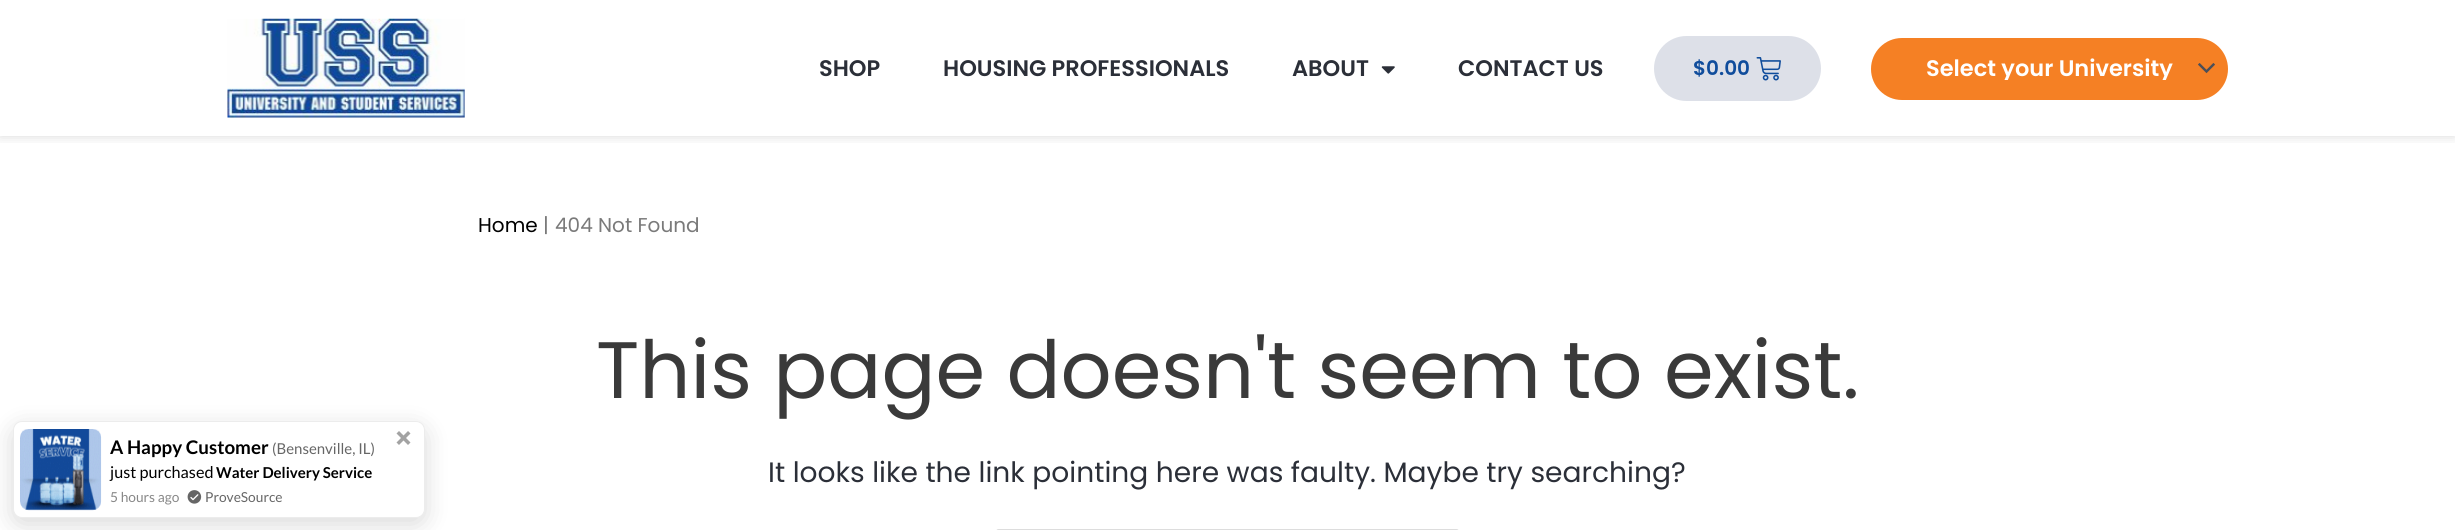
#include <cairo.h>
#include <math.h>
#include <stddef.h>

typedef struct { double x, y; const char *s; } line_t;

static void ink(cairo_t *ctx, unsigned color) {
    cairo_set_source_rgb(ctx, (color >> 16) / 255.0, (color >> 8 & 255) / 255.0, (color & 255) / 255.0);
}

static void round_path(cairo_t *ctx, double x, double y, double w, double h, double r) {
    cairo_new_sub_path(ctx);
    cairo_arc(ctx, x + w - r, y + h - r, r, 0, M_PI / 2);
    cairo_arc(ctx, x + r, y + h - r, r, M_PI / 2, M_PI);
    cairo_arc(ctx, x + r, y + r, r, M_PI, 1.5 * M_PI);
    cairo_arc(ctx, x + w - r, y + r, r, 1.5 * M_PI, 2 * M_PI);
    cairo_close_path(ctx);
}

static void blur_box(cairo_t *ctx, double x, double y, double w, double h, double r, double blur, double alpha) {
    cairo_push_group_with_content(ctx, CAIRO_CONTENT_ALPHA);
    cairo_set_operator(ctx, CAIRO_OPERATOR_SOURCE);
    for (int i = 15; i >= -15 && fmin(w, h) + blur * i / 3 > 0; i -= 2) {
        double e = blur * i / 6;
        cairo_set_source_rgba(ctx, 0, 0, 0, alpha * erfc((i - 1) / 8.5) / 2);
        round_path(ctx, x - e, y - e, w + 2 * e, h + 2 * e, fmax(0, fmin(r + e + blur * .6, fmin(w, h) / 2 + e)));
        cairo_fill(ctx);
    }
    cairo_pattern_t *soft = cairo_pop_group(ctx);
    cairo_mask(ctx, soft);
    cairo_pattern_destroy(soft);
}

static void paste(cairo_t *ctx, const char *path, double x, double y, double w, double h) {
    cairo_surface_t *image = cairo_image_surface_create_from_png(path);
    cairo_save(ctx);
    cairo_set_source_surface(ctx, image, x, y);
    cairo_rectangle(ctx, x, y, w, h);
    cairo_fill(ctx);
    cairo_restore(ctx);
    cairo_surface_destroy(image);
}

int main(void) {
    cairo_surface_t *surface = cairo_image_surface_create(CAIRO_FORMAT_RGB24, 2455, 530);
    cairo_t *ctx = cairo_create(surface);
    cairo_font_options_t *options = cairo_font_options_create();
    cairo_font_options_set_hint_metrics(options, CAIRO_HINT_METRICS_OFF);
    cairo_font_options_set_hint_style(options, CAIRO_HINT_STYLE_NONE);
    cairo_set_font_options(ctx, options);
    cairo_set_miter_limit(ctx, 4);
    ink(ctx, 0xFFFFFF);
    cairo_paint(ctx);
    ink(ctx, 0x000000);
    blur_box(ctx, 13, 428, 412, 96, 9, 12.5, 0.15);
    ink(ctx, 0xFFFFFF);
    round_path(ctx, 13.5, 421.5, 411, 96, 8.5);
    cairo_fill_preserve(ctx);
    ink(ctx, 0xECECEC);
    cairo_set_line_width(ctx, 1);
    cairo_stroke(ctx);
    ink(ctx, 0xA3A3A3);
    cairo_new_path(ctx);
    cairo_move_to(ctx, 399, 431);
    cairo_line_to(ctx, 410.5, 442.5);
    cairo_line_to(ctx, 408, 445);
    cairo_line_to(ctx, 396.5, 433.5);
    cairo_close_path(ctx);
    cairo_fill(ctx);
    cairo_new_path(ctx);
    cairo_move_to(ctx, 408, 431);
    cairo_line_to(ctx, 410.5, 433.5);
    cairo_line_to(ctx, 399, 445);
    cairo_line_to(ctx, 396.5, 442.5);
    cairo_close_path(ctx);
    cairo_fill(ctx);
    paste(ctx, "media/1.png", 20, 429, 82, 82);
    cairo_select_font_face(ctx, "Lato", CAIRO_FONT_SLANT_NORMAL, CAIRO_FONT_WEIGHT_BOLD);
    cairo_set_font_size(ctx, 18.75);
    ink(ctx, 0x000000);
    cairo_move_to(ctx, 110, 454);
    cairo_show_text(ctx, "A Happy Customer");
    cairo_select_font_face(ctx, "Lato", CAIRO_FONT_SLANT_NORMAL, CAIRO_FONT_WEIGHT_NORMAL);
    cairo_set_font_size(ctx, 15);
    ink(ctx, 0x666666);
    cairo_move_to(ctx, 272, 454);
    cairo_show_text(ctx, "(Bensenville, IL)");
    cairo_set_font_size(ctx, 16.25);
    ink(ctx, 0x000000);
    cairo_move_to(ctx, 110, 478);
    cairo_show_text(ctx, "just purchased");
    cairo_select_font_face(ctx, "Lato", CAIRO_FONT_SLANT_NORMAL, CAIRO_FONT_WEIGHT_BOLD);
    cairo_set_font_size(ctx, 15);
    cairo_move_to(ctx, 216, 478);
    cairo_show_text(ctx, "Water Delivery Service");
    cairo_select_font_face(ctx, "Lato", CAIRO_FONT_SLANT_NORMAL, CAIRO_FONT_WEIGHT_NORMAL);
    cairo_set_font_size(ctx, 13.75);
    ink(ctx, 0x888888);
    cairo_move_to(ctx, 110, 502);
    cairo_show_text(ctx, "5 hours ago");
    paste(ctx, "media/2.png", 187, 490, 15, 14);
    ink(ctx, 0x666666);
    cairo_move_to(ctx, 205, 502);
    cairo_show_text(ctx, "ProveSource");
    cairo_save(ctx);
    cairo_rectangle(ctx, 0, 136, 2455, 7);
    cairo_clip(ctx);
    ink(ctx, 0x000000);
    blur_box(ctx, 0, 0, 2455, 136, 0, 6, 0.15);
    cairo_restore(ctx);
    paste(ctx, "media/3.png", 227, 18, 238, 100);
    cairo_select_font_face(ctx, "Poppins SemiBold", CAIRO_FONT_SLANT_NORMAL, CAIRO_FONT_WEIGHT_NORMAL);
    cairo_set_font_size(ctx, 22.5);
    ink(ctx, 0x2B2F38);
    {
        static const line_t items[] = {
            {819, 76, "SHOP"},
            {943, 76, "HOUSING PROFESSIONALS"},
            {1292, 76, "ABOUT"},
        };
        for (size_t i = 0; i < sizeof items / sizeof *items; i++) {
            cairo_move_to(ctx, items[i].x, items[i].y);
            cairo_show_text(ctx, items[i].s);
        }
    }
    paste(ctx, "media/4.png", 1381, 66, 14, 8);
    cairo_move_to(ctx, 1458, 76);
    cairo_show_text(ctx, "CONTACT US");
    ink(ctx, 0xDDE0E8);
    round_path(ctx, 1654, 36, 167, 65, 32.5);
    cairo_fill(ctx);
    cairo_set_font_size(ctx, 20);
    ink(ctx, 0x104D9C);
    cairo_move_to(ctx, 1693, 75);
    cairo_show_text(ctx, "$0.00");
    paste(ctx, "media/5.png", 1756, 57, 25, 24);
    ink(ctx, 0xF58024);
    round_path(ctx, 1871, 38, 357, 62, 31);
    cairo_fill(ctx);
    paste(ctx, "media/6.png", 2198, 63, 17, 11);
    cairo_save(ctx);
    cairo_rectangle(ctx, 1896, 58, 307, 22);
    cairo_clip(ctx);
    cairo_set_font_size(ctx, 22.5);
    ink(ctx, 0xFFFFFF);
    cairo_move_to(ctx, 1926, 76);
    cairo_show_text(ctx, "Select your University");
    cairo_restore(ctx);
    cairo_select_font_face(ctx, "Poppins", CAIRO_FONT_SLANT_NORMAL, CAIRO_FONT_WEIGHT_NORMAL);
    ink(ctx, 0x000000);
    cairo_move_to(ctx, 478, 232);
    cairo_show_text(ctx, "Home");
    ink(ctx, 0x7A7A7A);
    cairo_move_to(ctx, 543, 232);
    cairo_show_text(ctx, "|");
    cairo_move_to(ctx, 555, 232);
    cairo_show_text(ctx, "404 Not Found");
    cairo_set_font_size(ctx, 80);
    ink(ctx, 0x3A3A3A);
    cairo_move_to(ctx, 596, 398);
    cairo_show_text(ctx, "This page doesn't seem to exist.");
    cairo_set_font_size(ctx, 28.1);
    ink(ctx, 0x2B2F38);
    cairo_move_to(ctx, 768, 482);
    cairo_show_text(ctx, "It looks like the link pointing here was faulty. Maybe try searching?");
    round_path(ctx, 996.5, 529.5, 462, 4, 2);
    ink(ctx, 0xDDDDDD);
    cairo_stroke(ctx);
    cairo_surface_write_to_png(surface, "image.png");
    cairo_font_options_destroy(options);
    cairo_destroy(ctx);
    cairo_surface_destroy(surface);
    return 0;
}
